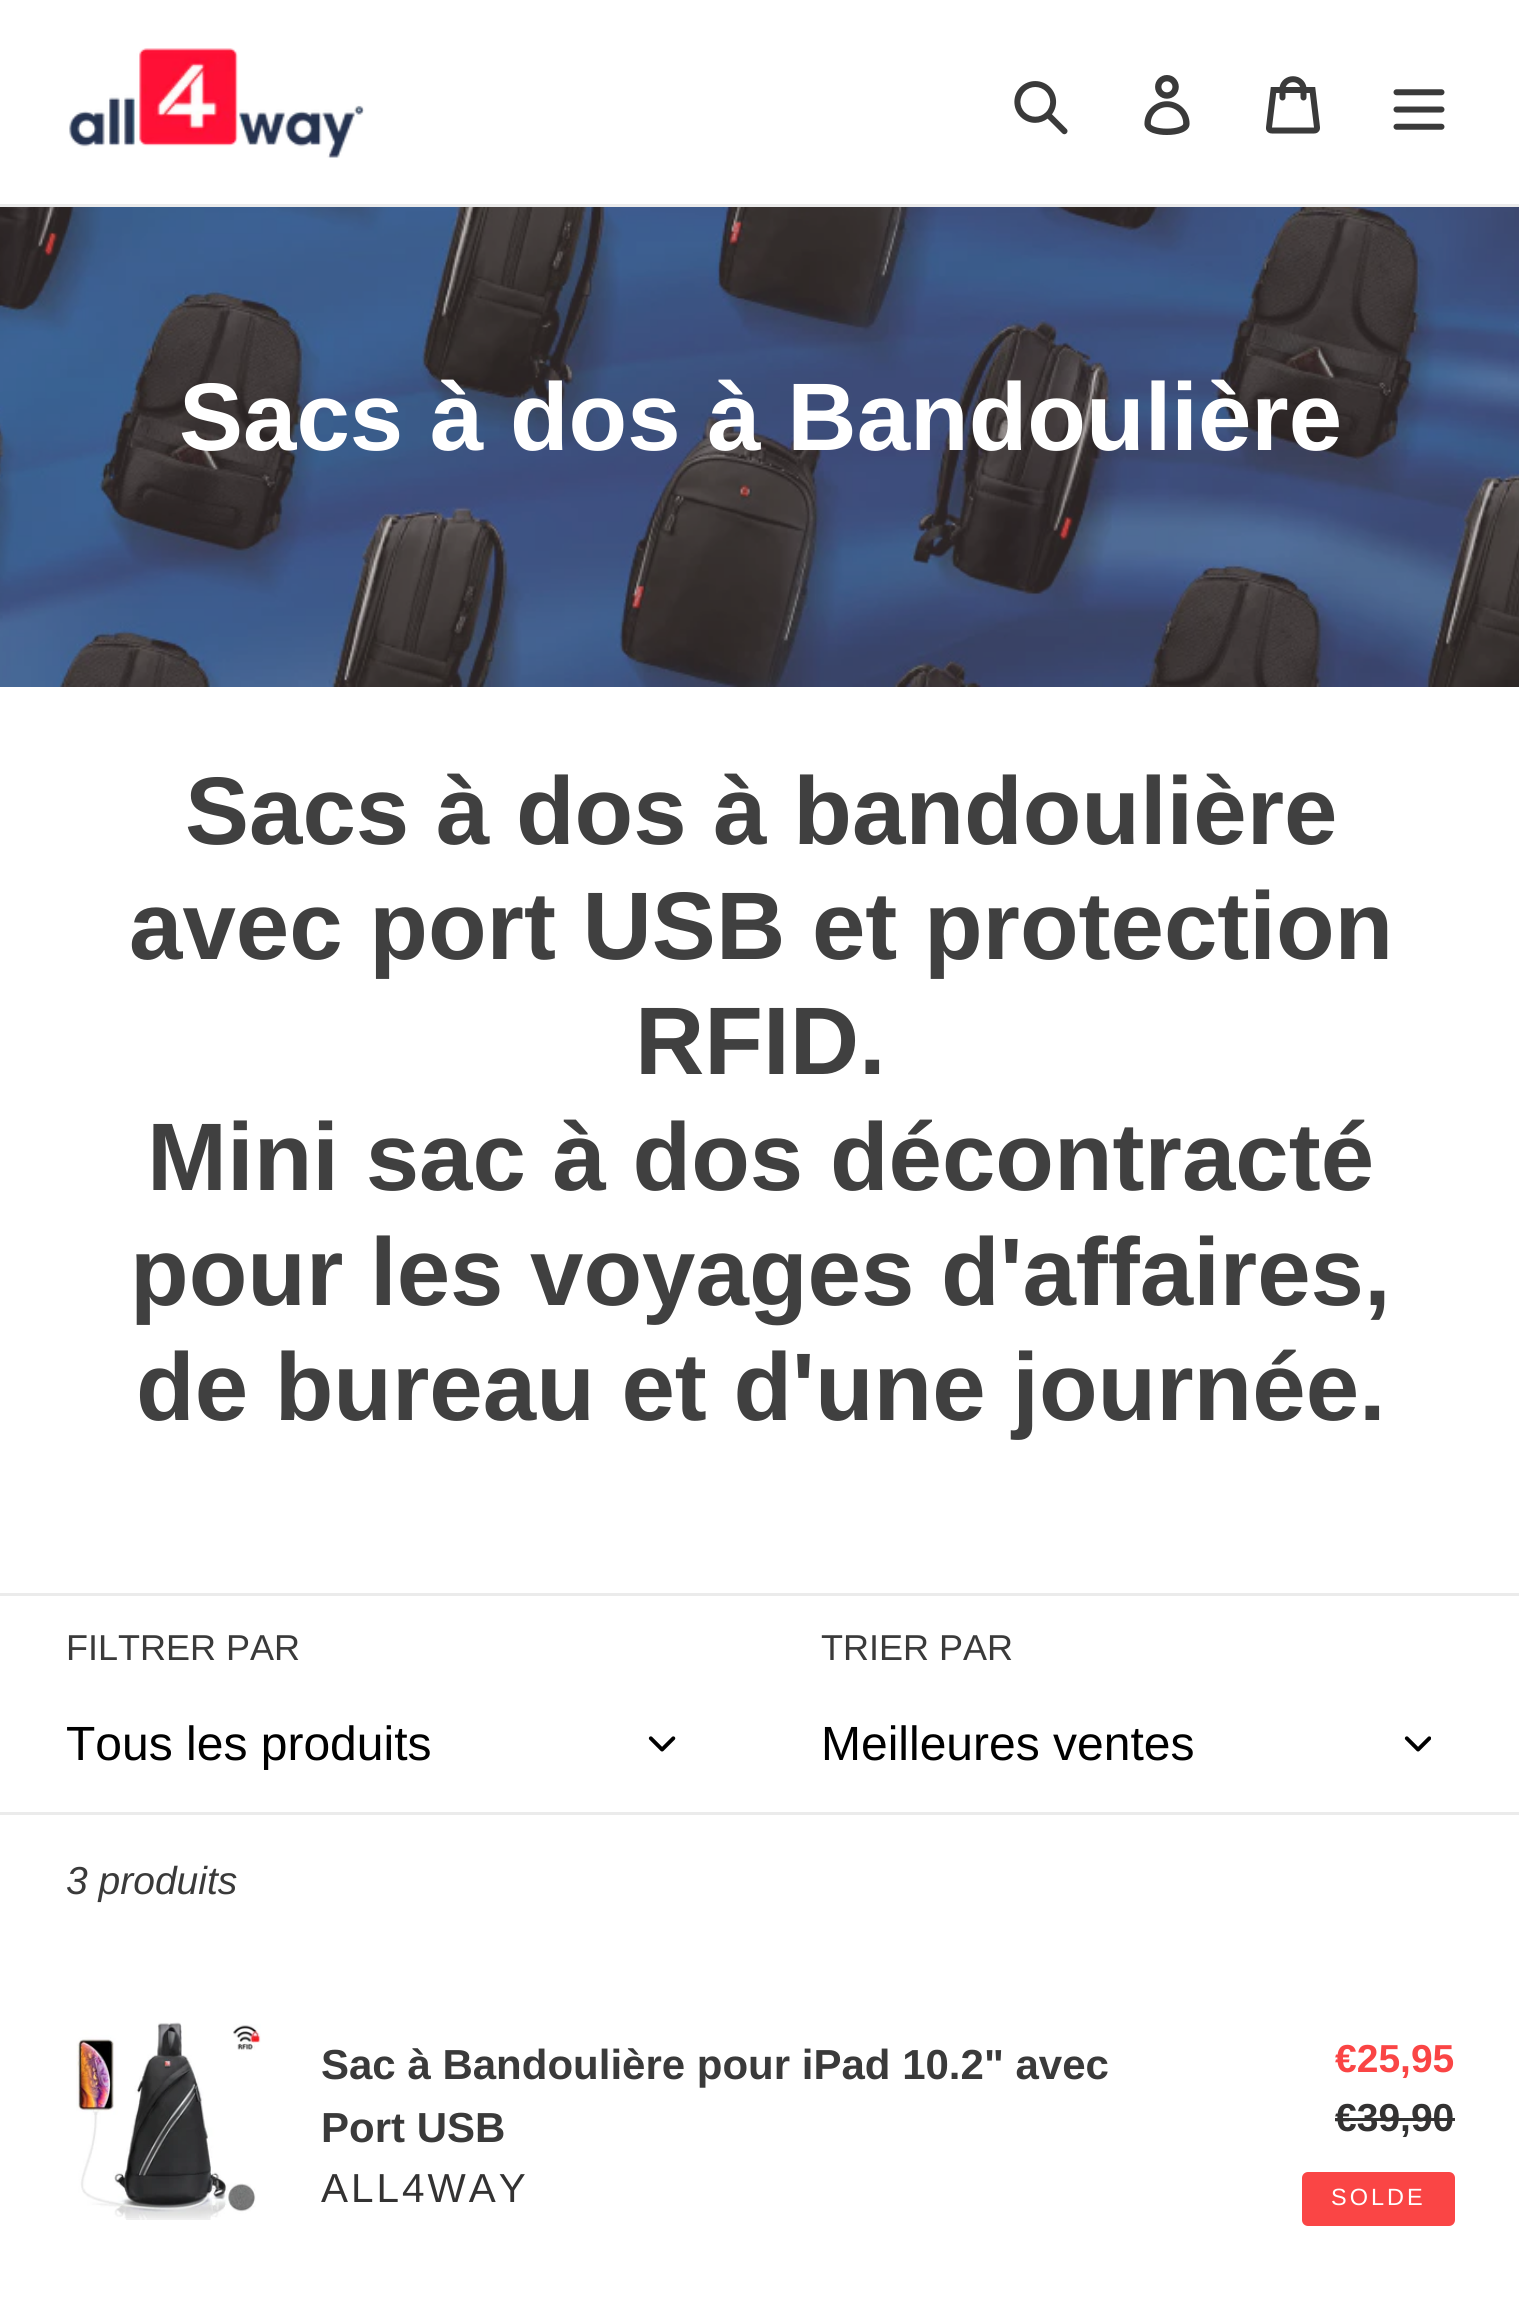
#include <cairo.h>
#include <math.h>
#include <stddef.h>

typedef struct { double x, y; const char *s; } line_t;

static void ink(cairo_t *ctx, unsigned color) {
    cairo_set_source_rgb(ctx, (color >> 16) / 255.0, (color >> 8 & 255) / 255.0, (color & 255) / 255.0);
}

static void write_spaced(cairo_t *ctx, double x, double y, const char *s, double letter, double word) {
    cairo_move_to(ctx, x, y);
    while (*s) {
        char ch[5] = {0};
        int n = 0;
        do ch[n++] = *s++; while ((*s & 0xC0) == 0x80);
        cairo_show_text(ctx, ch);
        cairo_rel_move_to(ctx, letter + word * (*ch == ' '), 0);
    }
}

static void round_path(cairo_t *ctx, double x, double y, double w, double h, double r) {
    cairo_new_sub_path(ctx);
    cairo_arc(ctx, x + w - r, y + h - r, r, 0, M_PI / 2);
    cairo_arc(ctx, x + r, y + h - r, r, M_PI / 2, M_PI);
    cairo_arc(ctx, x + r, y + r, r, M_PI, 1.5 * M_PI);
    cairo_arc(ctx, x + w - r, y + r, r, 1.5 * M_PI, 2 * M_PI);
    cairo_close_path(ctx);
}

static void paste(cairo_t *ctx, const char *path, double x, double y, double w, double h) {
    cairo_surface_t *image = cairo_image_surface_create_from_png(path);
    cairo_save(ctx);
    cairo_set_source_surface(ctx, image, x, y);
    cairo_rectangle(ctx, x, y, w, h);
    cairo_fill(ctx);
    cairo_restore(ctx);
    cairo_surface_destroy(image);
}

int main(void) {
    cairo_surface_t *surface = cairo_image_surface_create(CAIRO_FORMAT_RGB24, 1519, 2303);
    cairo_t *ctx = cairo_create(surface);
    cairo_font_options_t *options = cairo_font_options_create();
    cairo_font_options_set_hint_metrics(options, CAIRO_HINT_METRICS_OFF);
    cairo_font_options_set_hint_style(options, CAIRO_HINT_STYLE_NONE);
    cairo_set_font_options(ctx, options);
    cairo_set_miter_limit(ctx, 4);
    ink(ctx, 0xFFFFFF);
    cairo_paint(ctx);
    ink(ctx, 0xEBEBEB);
    cairo_rectangle(ctx, 0, 204, 1519, 3);
    cairo_fill(ctx);
    paste(ctx, "media/1.png", 69, 48, 296, 110);
    paste(ctx, "media/2.png", 1014, 81, 54, 54);
    paste(ctx, "media/3.png", 1144, 75, 46, 60);
    paste(ctx, "media/4.png", 1266, 76, 54, 58);
    paste(ctx, "media/5.png", 1393, 89, 52, 41);
    paste(ctx, "media/6.png", 0, 207, 1519, 480);
    cairo_select_font_face(ctx, "Liberation Sans", CAIRO_FONT_SLANT_NORMAL, CAIRO_FONT_WEIGHT_BOLD);
    cairo_set_font_size(ctx, 96);
    ink(ctx, 0xFFFFFF);
    cairo_move_to(ctx, 179, 450);
    cairo_show_text(ctx, "Sacs à dos à Bandoulière");
    ink(ctx, 0x404040);
    {
        static const line_t items[] = {
            {185, 844, "Sacs à dos à bandoulière"},
            {129, 959, "avec port USB et protection"},
            {635, 1074, "RFID."},
            {147, 1190, "Mini sac à dos décontracté"},
            {130, 1305, "pour les voyages d'affaires,"},
            {136, 1420, "de bureau et d'une journée."},
        };
        for (size_t i = 0; i < sizeof items / sizeof *items; i++) {
            cairo_move_to(ctx, items[i].x, items[i].y);
            cairo_show_text(ctx, items[i].s);
        }
    }
    ink(ctx, 0xEBEBEB);
    cairo_rectangle(ctx, 0, 1593, 1519, 3);
    cairo_fill(ctx);
    cairo_select_font_face(ctx, "Liberation Sans", CAIRO_FONT_SLANT_NORMAL, CAIRO_FONT_WEIGHT_NORMAL);
    cairo_set_font_size(ctx, 36);
    ink(ctx, 0x3A3A3A);
    cairo_move_to(ctx, 66, 1660);
    cairo_show_text(ctx, "FILTRER PAR");
    cairo_set_font_size(ctx, 48);
    ink(ctx, 0x000000);
    cairo_move_to(ctx, 66, 1760);
    cairo_show_text(ctx, "Tous les produits");
    paste(ctx, "media/7.png", 648, 1736, 28, 16);
    cairo_set_font_size(ctx, 36);
    ink(ctx, 0x3A3A3A);
    cairo_move_to(ctx, 821, 1660);
    cairo_show_text(ctx, "TRIER PAR");
    cairo_set_font_size(ctx, 48);
    ink(ctx, 0x000000);
    cairo_move_to(ctx, 821, 1760);
    cairo_show_text(ctx, "Meilleures ventes");
    paste(ctx, "media/8.png", 1404, 1736, 27, 16);
    ink(ctx, 0xEBEBEB);
    cairo_rectangle(ctx, 0, 1812, 1519, 3);
    cairo_fill(ctx);
    cairo_select_font_face(ctx, "Liberation Sans", CAIRO_FONT_SLANT_ITALIC, CAIRO_FONT_WEIGHT_NORMAL);
    cairo_set_font_size(ctx, 39);
    ink(ctx, 0x3A3A3A);
    cairo_move_to(ctx, 66, 1894);
    cairo_show_text(ctx, "3 produits");
    paste(ctx, "media/9.png", 76, 2022, 185, 198);
    cairo_select_font_face(ctx, "Liberation Sans", CAIRO_FONT_SLANT_NORMAL, CAIRO_FONT_WEIGHT_BOLD);
    cairo_set_font_size(ctx, 42);
    cairo_move_to(ctx, 321, 2079);
    cairo_show_text(ctx, "Sac à Bandoulière pour iPad 10.2\" avec");
    cairo_move_to(ctx, 321, 2142);
    cairo_show_text(ctx, "Port USB");
    cairo_select_font_face(ctx, "Liberation Sans", CAIRO_FONT_SLANT_NORMAL, CAIRO_FONT_WEIGHT_NORMAL);
    cairo_set_font_size(ctx, 40.5);
    ink(ctx, 0x333232);
    write_spaced(ctx, 321, 2202, "ALL4WAY", 3, 0);
    cairo_select_font_face(ctx, "Liberation Sans", CAIRO_FONT_SLANT_NORMAL, CAIRO_FONT_WEIGHT_BOLD);
    cairo_set_font_size(ctx, 39);
    ink(ctx, 0xFA4545);
    cairo_move_to(ctx, 1335, 2072);
    cairo_show_text(ctx, "€25,95");
    ink(ctx, 0x333232);
    cairo_move_to(ctx, 1335, 2131);
    cairo_show_text(ctx, "€39,90");
    cairo_rectangle(ctx, 1335, 2118, 120, 3);
    cairo_fill(ctx);
    ink(ctx, 0xFA4545);
    round_path(ctx, 1303.5, 2173.5, 150, 51, 4.5);
    cairo_fill_preserve(ctx);
    cairo_set_line_width(ctx, 3);
    cairo_stroke(ctx);
    cairo_select_font_face(ctx, "Liberation Sans", CAIRO_FONT_SLANT_NORMAL, CAIRO_FONT_WEIGHT_NORMAL);
    cairo_set_font_size(ctx, 23.5);
    ink(ctx, 0xFFFFFF);
    write_spaced(ctx, 1331, 2205, "SOLDE", 3, 0);
    cairo_surface_write_to_png(surface, "image.png");
    cairo_font_options_destroy(options);
    cairo_destroy(ctx);
    cairo_surface_destroy(surface);
    return 0;
}
